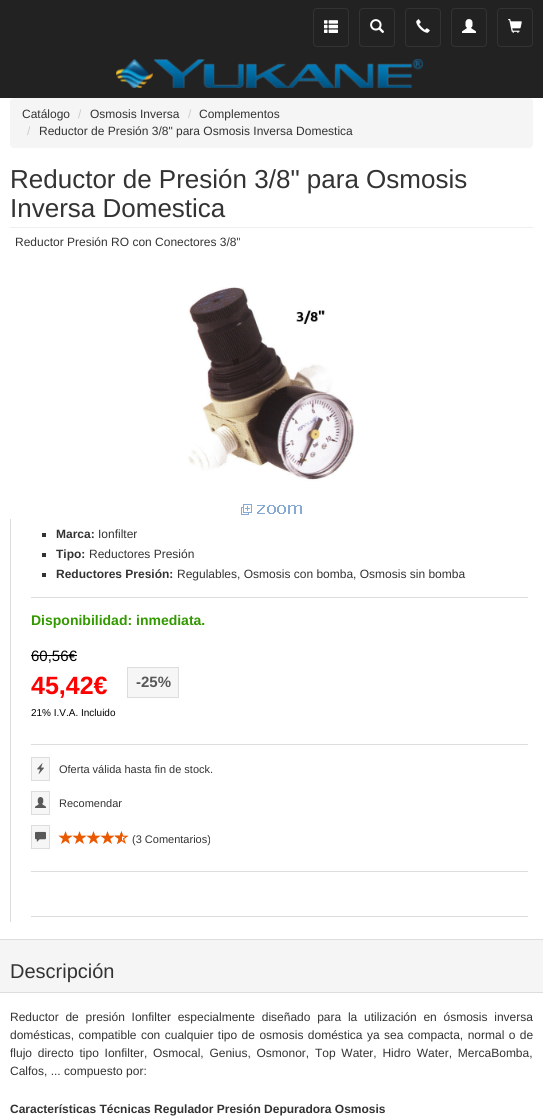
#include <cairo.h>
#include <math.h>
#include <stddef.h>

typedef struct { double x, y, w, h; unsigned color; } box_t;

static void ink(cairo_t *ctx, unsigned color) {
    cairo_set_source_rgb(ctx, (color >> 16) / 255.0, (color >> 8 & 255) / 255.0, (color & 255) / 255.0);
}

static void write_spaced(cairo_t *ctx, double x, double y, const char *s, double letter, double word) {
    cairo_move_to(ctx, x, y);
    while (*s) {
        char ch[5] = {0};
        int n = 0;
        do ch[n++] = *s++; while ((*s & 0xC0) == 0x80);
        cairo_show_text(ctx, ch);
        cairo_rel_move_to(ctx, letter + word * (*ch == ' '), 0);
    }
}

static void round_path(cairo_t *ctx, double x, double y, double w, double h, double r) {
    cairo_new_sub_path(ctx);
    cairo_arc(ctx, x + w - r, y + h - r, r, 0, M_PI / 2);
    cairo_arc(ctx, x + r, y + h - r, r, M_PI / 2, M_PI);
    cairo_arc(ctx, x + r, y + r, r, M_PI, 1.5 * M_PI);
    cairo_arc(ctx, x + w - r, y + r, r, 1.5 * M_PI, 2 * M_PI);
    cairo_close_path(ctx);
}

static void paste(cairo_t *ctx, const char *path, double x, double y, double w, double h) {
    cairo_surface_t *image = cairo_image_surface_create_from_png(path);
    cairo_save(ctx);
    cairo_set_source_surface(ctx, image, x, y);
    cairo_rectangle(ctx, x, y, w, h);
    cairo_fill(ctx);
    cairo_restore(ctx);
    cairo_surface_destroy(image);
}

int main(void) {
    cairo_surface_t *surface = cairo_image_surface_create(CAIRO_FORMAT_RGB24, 543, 1119);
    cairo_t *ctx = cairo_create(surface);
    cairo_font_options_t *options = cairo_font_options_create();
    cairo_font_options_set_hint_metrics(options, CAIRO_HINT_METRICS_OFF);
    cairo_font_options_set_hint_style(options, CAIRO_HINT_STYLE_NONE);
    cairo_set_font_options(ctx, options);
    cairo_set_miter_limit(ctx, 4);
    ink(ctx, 0xFFFFFF);
    cairo_paint(ctx);
    ink(ctx, 0x222222);
    cairo_rectangle(ctx, 0, 0, 543, 98);
    cairo_fill(ctx);
    paste(ctx, "media/1.png", 116, 59, 307, 29);
    round_path(ctx, 313.5, 8.5, 35, 38, 3.5);
    ink(ctx, 0x333333);
    cairo_set_line_width(ctx, 1);
    cairo_stroke(ctx);
    paste(ctx, "media/2.png", 324, 20, 14, 13);
    round_path(ctx, 359.5, 8.5, 35, 38, 3.5);
    cairo_stroke(ctx);
    paste(ctx, "media/3.png", 370, 19, 15, 14);
    round_path(ctx, 405.5, 8.5, 35, 38, 3.5);
    cairo_stroke(ctx);
    paste(ctx, "media/4.png", 416, 19, 14, 14);
    round_path(ctx, 451.5, 8.5, 35, 38, 3.5);
    cairo_stroke(ctx);
    paste(ctx, "media/5.png", 462, 19, 14, 14);
    round_path(ctx, 497.5, 8.5, 35, 38, 3.5);
    cairo_stroke(ctx);
    paste(ctx, "media/6.png", 508, 19, 14, 14);
    ink(ctx, 0xF5F5F5);
    round_path(ctx, 10, 98, 523, 50, 4);
    cairo_fill(ctx);
    cairo_select_font_face(ctx, "Liberation Sans", CAIRO_FONT_SLANT_NORMAL, CAIRO_FONT_WEIGHT_NORMAL);
    cairo_set_font_size(ctx, 12);
    ink(ctx, 0x333333);
    cairo_move_to(ctx, 22, 118);
    cairo_show_text(ctx, "Catálogo");
    ink(ctx, 0xCCCCCC);
    cairo_move_to(ctx, 78, 118);
    cairo_show_text(ctx, "/");
    ink(ctx, 0x333333);
    cairo_move_to(ctx, 90, 118);
    cairo_show_text(ctx, "Osmosis Inversa");
    ink(ctx, 0xCCCCCC);
    cairo_move_to(ctx, 188, 118);
    cairo_show_text(ctx, "/");
    ink(ctx, 0x333333);
    cairo_move_to(ctx, 199, 118);
    cairo_show_text(ctx, "Complementos");
    ink(ctx, 0xCCCCCC);
    cairo_move_to(ctx, 27, 135);
    cairo_show_text(ctx, "/");
    ink(ctx, 0x333333);
    cairo_move_to(ctx, 39, 135);
    cairo_show_text(ctx, "Reductor de Presión 3/8\" para Osmosis Inversa Domestica");
    ink(ctx, 0xEEEEEE);
    cairo_rectangle(ctx, 10, 227, 523, 1);
    cairo_fill(ctx);
    cairo_set_font_size(ctx, 26);
    ink(ctx, 0x333333);
    cairo_move_to(ctx, 10, 188);
    cairo_show_text(ctx, "Reductor de Presión 3/8\" para Osmosis");
    cairo_move_to(ctx, 10, 217);
    cairo_show_text(ctx, "Inversa Domestica");
    cairo_set_font_size(ctx, 12);
    cairo_move_to(ctx, 15, 246);
    cairo_show_text(ctx, "Reductor Presión RO con Conectores 3/8\"");
    paste(ctx, "media/7.png", 188, 287, 166, 194);
    paste(ctx, "media/8.png", 241, 504, 61, 11);
    ink(ctx, 0xDDDDDD);
    cairo_rectangle(ctx, 10, 519, 1, 403);
    cairo_fill(ctx);
    ink(ctx, 0x333333);
    cairo_rectangle(ctx, 42, 533, 4, 4);
    cairo_fill(ctx);
    cairo_select_font_face(ctx, "Liberation Sans", CAIRO_FONT_SLANT_NORMAL, CAIRO_FONT_WEIGHT_BOLD);
    cairo_move_to(ctx, 56, 538);
    cairo_show_text(ctx, "Marca:");
    cairo_select_font_face(ctx, "Liberation Sans", CAIRO_FONT_SLANT_NORMAL, CAIRO_FONT_WEIGHT_NORMAL);
    cairo_move_to(ctx, 98, 538);
    cairo_show_text(ctx, "Ionfilter");
    cairo_rectangle(ctx, 42, 553, 4, 4);
    cairo_fill(ctx);
    cairo_select_font_face(ctx, "Liberation Sans", CAIRO_FONT_SLANT_NORMAL, CAIRO_FONT_WEIGHT_BOLD);
    cairo_move_to(ctx, 56, 558);
    cairo_show_text(ctx, "Tipo:");
    cairo_select_font_face(ctx, "Liberation Sans", CAIRO_FONT_SLANT_NORMAL, CAIRO_FONT_WEIGHT_NORMAL);
    cairo_move_to(ctx, 89, 558);
    cairo_show_text(ctx, "Reductores Presión");
    cairo_rectangle(ctx, 42, 573, 4, 4);
    cairo_fill(ctx);
    cairo_select_font_face(ctx, "Liberation Sans", CAIRO_FONT_SLANT_NORMAL, CAIRO_FONT_WEIGHT_BOLD);
    cairo_move_to(ctx, 56, 578);
    cairo_show_text(ctx, "Reductores Presión:");
    cairo_select_font_face(ctx, "Liberation Sans", CAIRO_FONT_SLANT_NORMAL, CAIRO_FONT_WEIGHT_NORMAL);
    cairo_move_to(ctx, 177, 578);
    cairo_show_text(ctx, "Regulables, Osmosis con bomba, Osmosis sin bomba");
    ink(ctx, 0xDDDDDD);
    cairo_rectangle(ctx, 31, 597, 497, 1);
    cairo_fill(ctx);
    cairo_select_font_face(ctx, "Liberation Sans", CAIRO_FONT_SLANT_NORMAL, CAIRO_FONT_WEIGHT_BOLD);
    cairo_set_font_size(ctx, 14);
    ink(ctx, 0x339900);
    cairo_move_to(ctx, 31, 625);
    cairo_show_text(ctx, "Disponibilidad: inmediata.");
    cairo_select_font_face(ctx, "Liberation Sans", CAIRO_FONT_SLANT_NORMAL, CAIRO_FONT_WEIGHT_NORMAL);
    cairo_set_font_size(ctx, 15);
    ink(ctx, 0x000000);
    cairo_move_to(ctx, 31, 661);
    cairo_show_text(ctx, "60,56€");
    cairo_rectangle(ctx, 31, 655, 46, 1);
    cairo_fill(ctx);
    cairo_select_font_face(ctx, "Liberation Sans", CAIRO_FONT_SLANT_NORMAL, CAIRO_FONT_WEIGHT_BOLD);
    cairo_set_font_size(ctx, 25);
    ink(ctx, 0xFF0000);
    cairo_move_to(ctx, 31, 694);
    cairo_show_text(ctx, "45,42€");
    ink(ctx, 0xF6F6F6);
    cairo_rectangle(ctx, 127.5, 667.5, 51, 30);
    cairo_fill_preserve(ctx);
    ink(ctx, 0xDDDDDD);
    cairo_stroke(ctx);
    cairo_set_font_size(ctx, 15);
    ink(ctx, 0x595959);
    cairo_move_to(ctx, 136, 687);
    cairo_show_text(ctx, "-25%");
    cairo_select_font_face(ctx, "Liberation Sans", CAIRO_FONT_SLANT_NORMAL, CAIRO_FONT_WEIGHT_NORMAL);
    cairo_set_font_size(ctx, 10);
    ink(ctx, 0x000000);
    cairo_move_to(ctx, 31, 716);
    cairo_show_text(ctx, "21% I.V.A. Incluido");
    ink(ctx, 0xDDDDDD);
    cairo_rectangle(ctx, 31, 744, 497, 1);
    cairo_fill(ctx);
    ink(ctx, 0xF6F6F6);
    cairo_rectangle(ctx, 31.5, 757.5, 18, 23);
    cairo_fill_preserve(ctx);
    ink(ctx, 0xDDDDDD);
    cairo_stroke(ctx);
    paste(ctx, "media/9.png", 37, 763, 7, 11);
    cairo_set_font_size(ctx, 11);
    ink(ctx, 0x333333);
    cairo_move_to(ctx, 59, 773);
    cairo_show_text(ctx, "Oferta válida hasta fin de stock.");
    ink(ctx, 0xF6F6F6);
    cairo_rectangle(ctx, 31.5, 791.5, 18, 23);
    cairo_fill_preserve(ctx);
    ink(ctx, 0xDDDDDD);
    cairo_stroke(ctx);
    paste(ctx, "media/10.png", 35, 797, 11, 11);
    ink(ctx, 0x333333);
    cairo_move_to(ctx, 59, 807);
    cairo_show_text(ctx, "Recomendar");
    ink(ctx, 0xF6F6F6);
    cairo_rectangle(ctx, 31.5, 825.5, 18, 23);
    cairo_fill_preserve(ctx);
    ink(ctx, 0xDDDDDD);
    cairo_stroke(ctx);
    paste(ctx, "media/11.png", 35, 831, 11, 11);
    paste(ctx, "media/12.png", 58, 831, 15, 13);
    paste(ctx, "media/13.png", 72, 831, 15, 13);
    paste(ctx, "media/13.png", 86, 831, 15, 13);
    paste(ctx, "media/13.png", 100, 831, 15, 13);
    paste(ctx, "media/14.png", 114, 831, 15, 13);
    paste(ctx, "media/15.png", 115, 831, 7, 13);
    ink(ctx, 0x333333);
    cairo_move_to(ctx, 132, 843);
    cairo_show_text(ctx, "(3 Comentarios)");
    {
        static const box_t items[] = {
            {31, 871, 497, 1, 0xDDDDDD},
            {31, 916, 497, 1, 0xDDDDDD},
            {0, 940, 543, 52, 0xF5F5F5},
            {0, 939, 543, 1, 0xDDDDDD},
            {0, 992, 543, 1, 0xDDDDDD},
        };
        for (size_t i = 0; i < sizeof items / sizeof *items; i++) {
            ink(ctx, items[i].color);
            cairo_rectangle(ctx, items[i].x, items[i].y, items[i].w, items[i].h);
            cairo_fill(ctx);
        }
    }
    cairo_set_font_size(ctx, 20);
    ink(ctx, 0x333333);
    cairo_move_to(ctx, 10, 978);
    cairo_show_text(ctx, "Descripción");
    cairo_set_font_size(ctx, 12);
    write_spaced(ctx, 10, 1021, "Reductor de presión Ionfilter especialmente diseñado para la utilización en ósmosis inversa", 0, 3.4);
    write_spaced(ctx, 10, 1039, "domésticas, compatible con cualquier tipo de osmosis doméstica ya sea compacta, normal o de", 0, 1.1);
    write_spaced(ctx, 10, 1057, "flujo directo tipo Ionfilter, Osmocal, Genius, Osmonor, Top Water, Hidro Water, MercaBomba,", 0, 2.4);
    cairo_move_to(ctx, 10, 1075);
    cairo_show_text(ctx, "Calfos, ... compuesto por:");
    cairo_select_font_face(ctx, "Liberation Sans", CAIRO_FONT_SLANT_NORMAL, CAIRO_FONT_WEIGHT_BOLD);
    cairo_move_to(ctx, 10, 1113);
    cairo_show_text(ctx, "Características Técnicas Regulador Presión Depuradora Osmosis");
    cairo_surface_write_to_png(surface, "image.png");
    cairo_font_options_destroy(options);
    cairo_destroy(ctx);
    cairo_surface_destroy(surface);
    return 0;
}
